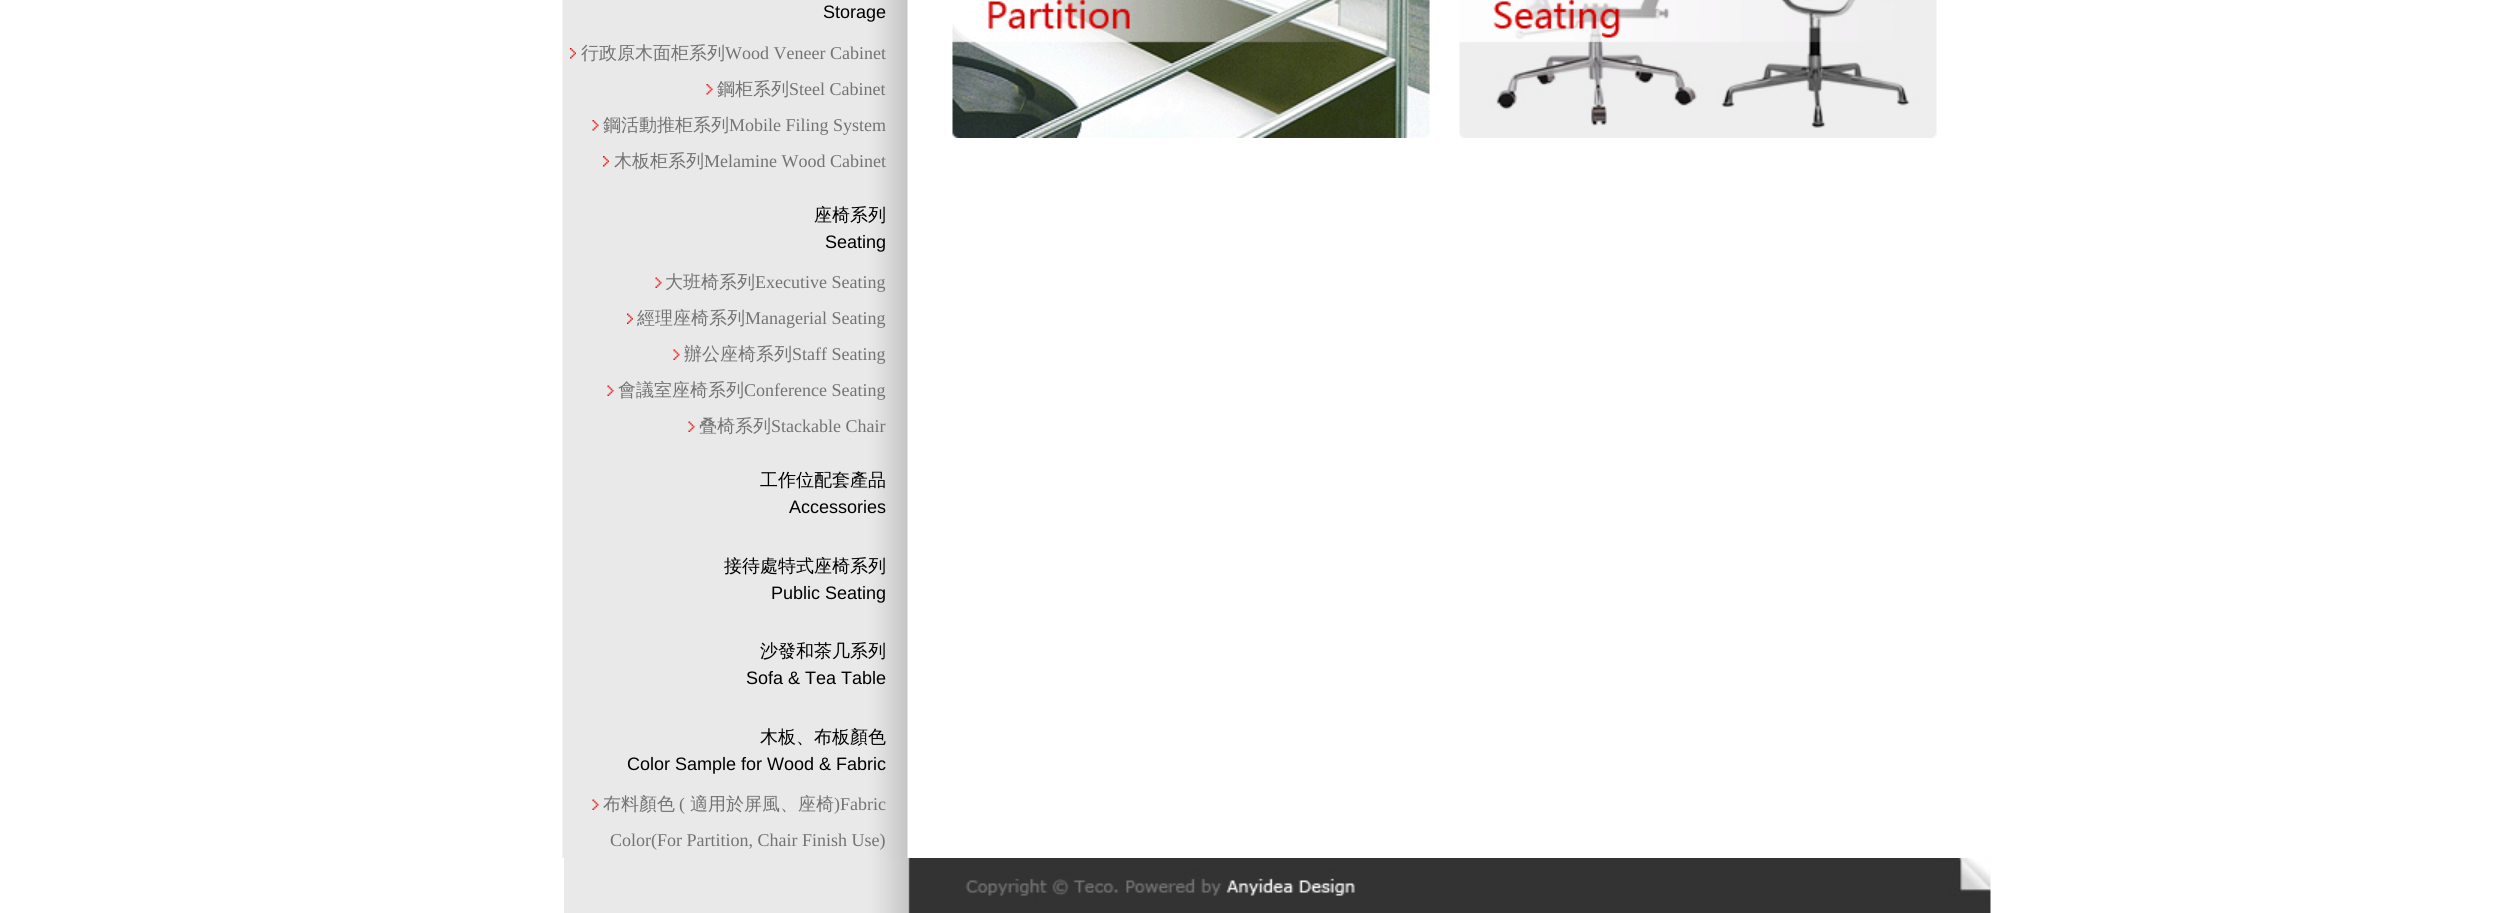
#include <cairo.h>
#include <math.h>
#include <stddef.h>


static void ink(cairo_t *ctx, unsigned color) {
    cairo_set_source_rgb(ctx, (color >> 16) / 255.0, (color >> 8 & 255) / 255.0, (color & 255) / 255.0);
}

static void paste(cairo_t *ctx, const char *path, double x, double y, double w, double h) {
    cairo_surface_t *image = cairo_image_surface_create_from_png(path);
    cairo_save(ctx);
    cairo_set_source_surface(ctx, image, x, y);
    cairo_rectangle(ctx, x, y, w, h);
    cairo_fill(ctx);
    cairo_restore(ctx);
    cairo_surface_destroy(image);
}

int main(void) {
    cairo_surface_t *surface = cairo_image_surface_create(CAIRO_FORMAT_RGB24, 2509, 913);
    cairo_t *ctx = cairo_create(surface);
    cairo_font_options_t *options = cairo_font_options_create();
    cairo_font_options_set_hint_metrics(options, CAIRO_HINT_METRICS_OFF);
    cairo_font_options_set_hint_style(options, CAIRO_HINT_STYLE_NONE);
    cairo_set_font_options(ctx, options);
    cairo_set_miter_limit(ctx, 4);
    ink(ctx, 0xFFFFFF);
    cairo_paint(ctx);
    paste(ctx, "media/1.png", 562, 0, 346, 858);
    cairo_select_font_face(ctx, "Liberation Sans", CAIRO_FONT_SLANT_NORMAL, CAIRO_FONT_WEIGHT_NORMAL);
    cairo_set_font_size(ctx, 18);
    ink(ctx, 0x000000);
    cairo_move_to(ctx, 823, 18);
    cairo_show_text(ctx, "Storage");
    paste(ctx, "media/2.png", 570, 48, 6, 11);
    cairo_select_font_face(ctx, "WenQuanYi Zen Hei Medium", CAIRO_FONT_SLANT_NORMAL, CAIRO_FONT_WEIGHT_NORMAL);
    ink(ctx, 0x737373);
    cairo_move_to(ctx, 581, 59);
    cairo_show_text(ctx, "行政原木面柜系列");
    cairo_select_font_face(ctx, "Liberation Serif", CAIRO_FONT_SLANT_NORMAL, CAIRO_FONT_WEIGHT_NORMAL);
    cairo_move_to(ctx, 725, 59);
    cairo_show_text(ctx, "Wood Veneer Cabinet");
    paste(ctx, "media/3.png", 706, 84, 7, 11);
    cairo_select_font_face(ctx, "WenQuanYi Zen Hei Medium", CAIRO_FONT_SLANT_NORMAL, CAIRO_FONT_WEIGHT_NORMAL);
    cairo_move_to(ctx, 717, 95);
    cairo_show_text(ctx, "鋼柜系列");
    cairo_select_font_face(ctx, "Liberation Serif", CAIRO_FONT_SLANT_NORMAL, CAIRO_FONT_WEIGHT_NORMAL);
    cairo_move_to(ctx, 789, 95);
    cairo_show_text(ctx, "Steel Cabinet");
    paste(ctx, "media/3.png", 592, 120, 7, 11);
    cairo_select_font_face(ctx, "WenQuanYi Zen Hei Medium", CAIRO_FONT_SLANT_NORMAL, CAIRO_FONT_WEIGHT_NORMAL);
    cairo_move_to(ctx, 603, 131);
    cairo_show_text(ctx, "鋼活動推柜系列");
    cairo_select_font_face(ctx, "Liberation Serif", CAIRO_FONT_SLANT_NORMAL, CAIRO_FONT_WEIGHT_NORMAL);
    cairo_move_to(ctx, 729, 131);
    cairo_show_text(ctx, "Mobile Filing System");
    paste(ctx, "media/2.png", 603, 156, 6, 11);
    cairo_select_font_face(ctx, "WenQuanYi Zen Hei Medium", CAIRO_FONT_SLANT_NORMAL, CAIRO_FONT_WEIGHT_NORMAL);
    cairo_move_to(ctx, 614, 167);
    cairo_show_text(ctx, "木板柜系列");
    cairo_select_font_face(ctx, "Liberation Serif", CAIRO_FONT_SLANT_NORMAL, CAIRO_FONT_WEIGHT_NORMAL);
    cairo_move_to(ctx, 704, 167);
    cairo_show_text(ctx, "Melamine Wood Cabinet");
    cairo_select_font_face(ctx, "WenQuanYi Zen Hei Medium", CAIRO_FONT_SLANT_NORMAL, CAIRO_FONT_WEIGHT_NORMAL);
    ink(ctx, 0x000000);
    cairo_move_to(ctx, 814, 221);
    cairo_show_text(ctx, "座椅系列");
    cairo_select_font_face(ctx, "Liberation Sans", CAIRO_FONT_SLANT_NORMAL, CAIRO_FONT_WEIGHT_NORMAL);
    cairo_move_to(ctx, 825, 248);
    cairo_show_text(ctx, "Seating");
    paste(ctx, "media/4.png", 655, 277, 7, 11);
    cairo_select_font_face(ctx, "WenQuanYi Zen Hei Medium", CAIRO_FONT_SLANT_NORMAL, CAIRO_FONT_WEIGHT_NORMAL);
    ink(ctx, 0x737373);
    cairo_move_to(ctx, 665, 288);
    cairo_show_text(ctx, "大班椅系列");
    cairo_select_font_face(ctx, "Liberation Serif", CAIRO_FONT_SLANT_NORMAL, CAIRO_FONT_WEIGHT_NORMAL);
    cairo_move_to(ctx, 755, 288);
    cairo_show_text(ctx, "Executive Seating");
    paste(ctx, "media/5.png", 627, 313, 6, 11);
    cairo_select_font_face(ctx, "WenQuanYi Zen Hei Medium", CAIRO_FONT_SLANT_NORMAL, CAIRO_FONT_WEIGHT_NORMAL);
    cairo_move_to(ctx, 637, 324);
    cairo_show_text(ctx, "經理座椅系列");
    cairo_select_font_face(ctx, "Liberation Serif", CAIRO_FONT_SLANT_NORMAL, CAIRO_FONT_WEIGHT_NORMAL);
    cairo_move_to(ctx, 745, 324);
    cairo_show_text(ctx, "Managerial Seating");
    paste(ctx, "media/4.png", 673, 349, 7, 11);
    cairo_select_font_face(ctx, "WenQuanYi Zen Hei Medium", CAIRO_FONT_SLANT_NORMAL, CAIRO_FONT_WEIGHT_NORMAL);
    cairo_move_to(ctx, 684, 360);
    cairo_show_text(ctx, "辦公座椅系列");
    cairo_select_font_face(ctx, "Liberation Serif", CAIRO_FONT_SLANT_NORMAL, CAIRO_FONT_WEIGHT_NORMAL);
    cairo_move_to(ctx, 792, 360);
    cairo_show_text(ctx, "Staff Seating");
    paste(ctx, "media/4.png", 607, 385, 7, 11);
    cairo_select_font_face(ctx, "WenQuanYi Zen Hei Medium", CAIRO_FONT_SLANT_NORMAL, CAIRO_FONT_WEIGHT_NORMAL);
    cairo_move_to(ctx, 618, 396);
    cairo_show_text(ctx, "會議室座椅系列");
    cairo_select_font_face(ctx, "Liberation Serif", CAIRO_FONT_SLANT_NORMAL, CAIRO_FONT_WEIGHT_NORMAL);
    cairo_move_to(ctx, 744, 396);
    cairo_show_text(ctx, "Conference Seating");
    paste(ctx, "media/4.png", 688, 421, 7, 11);
    cairo_select_font_face(ctx, "WenQuanYi Zen Hei Medium", CAIRO_FONT_SLANT_NORMAL, CAIRO_FONT_WEIGHT_NORMAL);
    cairo_move_to(ctx, 699, 432);
    cairo_show_text(ctx, "叠椅系列");
    cairo_select_font_face(ctx, "Liberation Serif", CAIRO_FONT_SLANT_NORMAL, CAIRO_FONT_WEIGHT_NORMAL);
    cairo_move_to(ctx, 771, 432);
    cairo_show_text(ctx, "Stackable Chair");
    cairo_select_font_face(ctx, "WenQuanYi Zen Hei Medium", CAIRO_FONT_SLANT_NORMAL, CAIRO_FONT_WEIGHT_NORMAL);
    ink(ctx, 0x000000);
    cairo_move_to(ctx, 760, 486);
    cairo_show_text(ctx, "工作位配套產品");
    cairo_select_font_face(ctx, "Liberation Sans", CAIRO_FONT_SLANT_NORMAL, CAIRO_FONT_WEIGHT_NORMAL);
    cairo_move_to(ctx, 789, 513);
    cairo_show_text(ctx, "Accessories");
    cairo_select_font_face(ctx, "WenQuanYi Zen Hei Medium", CAIRO_FONT_SLANT_NORMAL, CAIRO_FONT_WEIGHT_NORMAL);
    cairo_move_to(ctx, 724, 572);
    cairo_show_text(ctx, "接待處特式座椅系列");
    cairo_select_font_face(ctx, "Liberation Sans", CAIRO_FONT_SLANT_NORMAL, CAIRO_FONT_WEIGHT_NORMAL);
    cairo_move_to(ctx, 771, 599);
    cairo_show_text(ctx, "Public Seating");
    cairo_select_font_face(ctx, "WenQuanYi Zen Hei Medium", CAIRO_FONT_SLANT_NORMAL, CAIRO_FONT_WEIGHT_NORMAL);
    cairo_move_to(ctx, 760, 657);
    cairo_show_text(ctx, "沙發和茶几系列");
    cairo_select_font_face(ctx, "Liberation Sans", CAIRO_FONT_SLANT_NORMAL, CAIRO_FONT_WEIGHT_NORMAL);
    cairo_move_to(ctx, 746, 684);
    cairo_show_text(ctx, "Sofa & Tea Table");
    cairo_select_font_face(ctx, "WenQuanYi Zen Hei Medium", CAIRO_FONT_SLANT_NORMAL, CAIRO_FONT_WEIGHT_NORMAL);
    cairo_move_to(ctx, 760, 743);
    cairo_show_text(ctx, "木板、布板顏色");
    cairo_select_font_face(ctx, "Liberation Sans", CAIRO_FONT_SLANT_NORMAL, CAIRO_FONT_WEIGHT_NORMAL);
    cairo_move_to(ctx, 627, 770);
    cairo_show_text(ctx, "Color Sample for Wood & Fabric");
    paste(ctx, "media/4.png", 592, 799, 7, 11);
    cairo_select_font_face(ctx, "WenQuanYi Zen Hei Medium", CAIRO_FONT_SLANT_NORMAL, CAIRO_FONT_WEIGHT_NORMAL);
    ink(ctx, 0x737373);
    cairo_move_to(ctx, 603, 810);
    cairo_show_text(ctx, "布料顏色");
    cairo_select_font_face(ctx, "Liberation Serif", CAIRO_FONT_SLANT_NORMAL, CAIRO_FONT_WEIGHT_NORMAL);
    cairo_move_to(ctx, 679, 810);
    cairo_show_text(ctx, "(");
    cairo_select_font_face(ctx, "WenQuanYi Zen Hei Medium", CAIRO_FONT_SLANT_NORMAL, CAIRO_FONT_WEIGHT_NORMAL);
    cairo_move_to(ctx, 690, 810);
    cairo_show_text(ctx, "適用於屏風、座椅");
    cairo_select_font_face(ctx, "Liberation Serif", CAIRO_FONT_SLANT_NORMAL, CAIRO_FONT_WEIGHT_NORMAL);
    cairo_move_to(ctx, 834, 810);
    cairo_show_text(ctx, ")Fabric");
    cairo_move_to(ctx, 610, 846);
    cairo_show_text(ctx, "Color(For Partition, Chair Finish Use)");
    paste(ctx, "media/6.png", 952, 0, 478, 138);
    paste(ctx, "media/7.png", 1459, 0, 478, 138);
    paste(ctx, "media/8.png", 564, 858, 1427, 55);
    cairo_surface_write_to_png(surface, "image.png");
    cairo_font_options_destroy(options);
    cairo_destroy(ctx);
    cairo_surface_destroy(surface);
    return 0;
}
